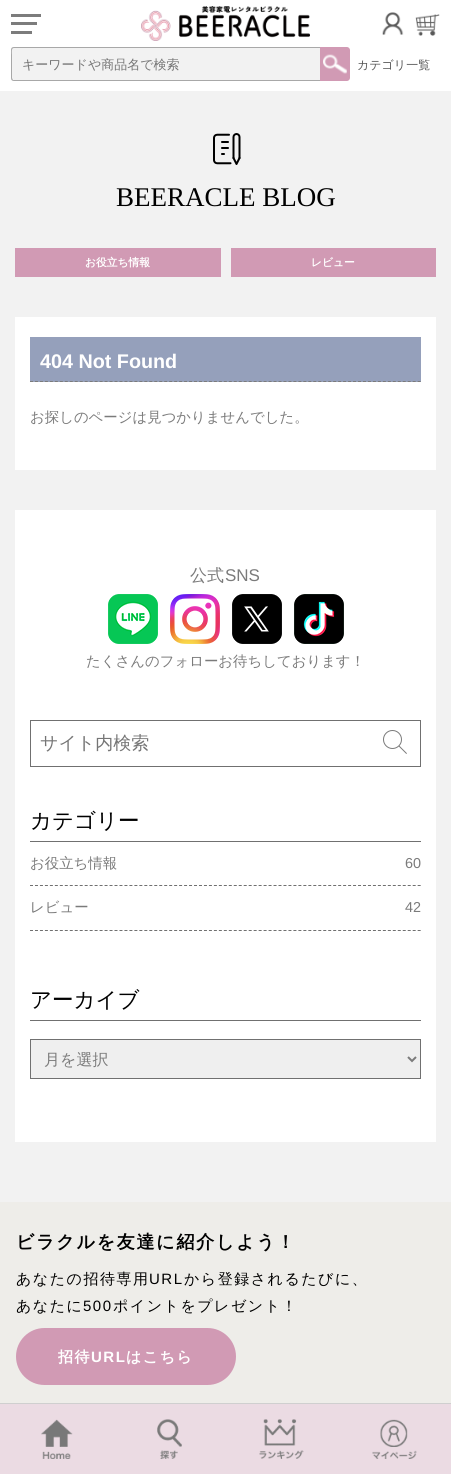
#include <cairo.h>
#include <math.h>
#include <stddef.h>

typedef struct { double x, y, w, h; unsigned color; } box_t;

static void ink(cairo_t *ctx, unsigned color) {
    cairo_set_source_rgb(ctx, (color >> 16) / 255.0, (color >> 8 & 255) / 255.0, (color & 255) / 255.0);
}

static void write_spaced(cairo_t *ctx, double x, double y, const char *s, double letter, double word) {
    cairo_move_to(ctx, x, y);
    while (*s) {
        char ch[5] = {0};
        int n = 0;
        do ch[n++] = *s++; while ((*s & 0xC0) == 0x80);
        cairo_show_text(ctx, ch);
        cairo_rel_move_to(ctx, letter + word * (*ch == ' '), 0);
    }
}

static void round_path(cairo_t *ctx, double x, double y, double w, double h, double r) {
    cairo_new_sub_path(ctx);
    cairo_arc(ctx, x + w - r, y + h - r, r, 0, M_PI / 2);
    cairo_arc(ctx, x + r, y + h - r, r, M_PI / 2, M_PI);
    cairo_arc(ctx, x + r, y + r, r, M_PI, 1.5 * M_PI);
    cairo_arc(ctx, x + w - r, y + r, r, 1.5 * M_PI, 2 * M_PI);
    cairo_close_path(ctx);
}

static void paste(cairo_t *ctx, const char *path, double x, double y, double w, double h) {
    cairo_surface_t *image = cairo_image_surface_create_from_png(path);
    cairo_save(ctx);
    cairo_set_source_surface(ctx, image, x, y);
    cairo_rectangle(ctx, x, y, w, h);
    cairo_fill(ctx);
    cairo_restore(ctx);
    cairo_surface_destroy(image);
}

int main(void) {
    cairo_surface_t *surface = cairo_image_surface_create(CAIRO_FORMAT_RGB24, 451, 1474);
    cairo_t *ctx = cairo_create(surface);
    cairo_font_options_t *options = cairo_font_options_create();
    cairo_font_options_set_hint_metrics(options, CAIRO_HINT_METRICS_OFF);
    cairo_font_options_set_hint_style(options, CAIRO_HINT_STYLE_NONE);
    cairo_set_font_options(ctx, options);
    cairo_set_miter_limit(ctx, 4);
    ink(ctx, 0xFFFFFF);
    cairo_paint(ctx);
    {
        static const box_t items[] = {
            {11, 14, 30, 3, 0x7C7C7C},
            {11, 22, 26, 3, 0x7C7C7C},
            {11, 31, 21, 3, 0x7C7C7C},
        };
        for (size_t i = 0; i < sizeof items / sizeof *items; i++) {
            ink(ctx, items[i].color);
            cairo_rectangle(ctx, items[i].x, items[i].y, items[i].w, items[i].h);
            cairo_fill(ctx);
        }
    }
    paste(ctx, "media/1.png", 141, 6, 169, 35);
    paste(ctx, "media/2.png", 382, 12, 22, 23);
    paste(ctx, "media/3.png", 415, 14, 25, 22);
    ink(ctx, 0xF2F2F2);
    cairo_new_path(ctx);
    cairo_move_to(ctx, 14, 48);
    cairo_line_to(ctx, 320, 48);
    cairo_line_to(ctx, 320, 80);
    cairo_line_to(ctx, 14, 80);
    cairo_curve_to(ctx, 13, 80, 12, 79, 12, 78);
    cairo_line_to(ctx, 12, 50);
    cairo_curve_to(ctx, 12, 49, 13, 48, 14, 48);
    cairo_close_path(ctx);
    cairo_fill(ctx);
    ink(ctx, 0xA8A8A8);
    cairo_set_fill_rule(ctx, CAIRO_FILL_RULE_EVEN_ODD);
    cairo_new_path(ctx);
    cairo_move_to(ctx, 14, 47);
    cairo_line_to(ctx, 320, 47);
    cairo_line_to(ctx, 320, 81);
    cairo_line_to(ctx, 14, 81);
    cairo_curve_to(ctx, 12, 81, 11, 80, 11, 78);
    cairo_line_to(ctx, 11, 50);
    cairo_curve_to(ctx, 11, 48, 12, 47, 14, 47);
    cairo_close_path(ctx);
    cairo_move_to(ctx, 14, 48);
    cairo_line_to(ctx, 320, 48);
    cairo_line_to(ctx, 320, 80);
    cairo_line_to(ctx, 13, 80);
    cairo_line_to(ctx, 12, 78);
    cairo_line_to(ctx, 12, 55);
    cairo_curve_to(ctx, 12, 53, 11, 48, 14, 48);
    cairo_close_path(ctx);
    cairo_fill(ctx);
    cairo_select_font_face(ctx, "WenQuanYi Zen Hei Medium", CAIRO_FONT_SLANT_NORMAL, CAIRO_FONT_WEIGHT_NORMAL);
    cairo_set_font_size(ctx, 13);
    ink(ctx, 0x757575);
    cairo_move_to(ctx, 22, 69);
    cairo_show_text(ctx, "キーワードや商品名で検索");
    ink(ctx, 0xD19AB4);
    cairo_new_path(ctx);
    cairo_move_to(ctx, 320, 47);
    cairo_line_to(ctx, 347, 47);
    cairo_curve_to(ctx, 348.5, 47, 350, 48.5, 350, 50);
    cairo_line_to(ctx, 350, 78);
    cairo_curve_to(ctx, 350, 79.5, 348.5, 81, 347, 81);
    cairo_line_to(ctx, 320, 81);
    cairo_close_path(ctx);
    cairo_fill(ctx);
    paste(ctx, "media/4.png", 323, 54, 24, 20);
    cairo_set_font_size(ctx, 12);
    ink(ctx, 0x565656);
    cairo_move_to(ctx, 357, 69);
    cairo_show_text(ctx, "カテゴリ一覧");
    ink(ctx, 0xF2F2F2);
    cairo_rectangle(ctx, 0, 91, 451, 1111);
    cairo_fill(ctx);
    paste(ctx, "media/5.png", 213, 133, 28, 32);
    cairo_select_font_face(ctx, "Liberation Serif", CAIRO_FONT_SLANT_NORMAL, CAIRO_FONT_WEIGHT_NORMAL);
    cairo_set_font_size(ctx, 27);
    ink(ctx, 0x000000);
    cairo_move_to(ctx, 116, 206);
    cairo_show_text(ctx, "BEERACLE BLOG");
    ink(ctx, 0xD19AB4);
    cairo_rectangle(ctx, 15, 248, 206, 29);
    cairo_fill(ctx);
    cairo_select_font_face(ctx, "WenQuanYi Zen Hei", CAIRO_FONT_SLANT_NORMAL, CAIRO_FONT_WEIGHT_BOLD);
    cairo_set_font_size(ctx, 10.75);
    ink(ctx, 0xFFFFFF);
    cairo_move_to(ctx, 85, 266);
    cairo_show_text(ctx, "お役立ち情報");
    ink(ctx, 0xD19AB4);
    cairo_rectangle(ctx, 231, 248, 205, 29);
    cairo_fill(ctx);
    ink(ctx, 0xFFFFFF);
    cairo_move_to(ctx, 311, 266);
    cairo_show_text(ctx, "レビュー");
    cairo_rectangle(ctx, 15, 317, 421, 153);
    cairo_fill(ctx);
    ink(ctx, 0x95A0BB);
    cairo_rectangle(ctx, 30, 337, 391, 45);
    cairo_fill(ctx);
    cairo_new_path(ctx);
    cairo_move_to(ctx, 30, 381.5);
    cairo_line_to(ctx, 421, 381.5);
    ink(ctx, 0x7B7B7B);
    cairo_set_line_width(ctx, 1);
    cairo_set_dash(ctx, (double[]){3, 1.97}, 2, 0);
    cairo_stroke(ctx);
    cairo_select_font_face(ctx, "Liberation Sans", CAIRO_FONT_SLANT_NORMAL, CAIRO_FONT_WEIGHT_BOLD);
    cairo_set_font_size(ctx, 19.75);
    ink(ctx, 0xFFFFFF);
    cairo_move_to(ctx, 40, 368);
    cairo_show_text(ctx, "404 Not Found");
    cairo_select_font_face(ctx, "WenQuanYi Zen Hei Medium", CAIRO_FONT_SLANT_NORMAL, CAIRO_FONT_WEIGHT_NORMAL);
    cairo_set_font_size(ctx, 14.4);
    ink(ctx, 0x7B7B7B);
    cairo_move_to(ctx, 30, 422);
    cairo_show_text(ctx, "お探しのページは見つかりませんでした。");
    ink(ctx, 0xFFFFFF);
    cairo_rectangle(ctx, 15, 510, 421, 632);
    cairo_fill(ctx);
    cairo_set_font_size(ctx, 17);
    ink(ctx, 0x7B7B7B);
    cairo_move_to(ctx, 190, 581);
    cairo_show_text(ctx, "公式");
    cairo_select_font_face(ctx, "Liberation Sans", CAIRO_FONT_SLANT_NORMAL, CAIRO_FONT_WEIGHT_NORMAL);
    cairo_move_to(ctx, 225, 581);
    cairo_show_text(ctx, "SNS");
    paste(ctx, "media/6.png", 108, 594, 50, 50);
    paste(ctx, "media/7.png", 170, 594, 50, 50);
    paste(ctx, "media/8.png", 232, 594, 50, 50);
    paste(ctx, "media/9.png", 294, 594, 50, 50);
    cairo_select_font_face(ctx, "WenQuanYi Zen Hei Medium", CAIRO_FONT_SLANT_NORMAL, CAIRO_FONT_WEIGHT_NORMAL);
    cairo_set_font_size(ctx, 14.4);
    cairo_move_to(ctx, 86, 666);
    cairo_show_text(ctx, "たくさんのフォローお待ちしております！");
    cairo_rectangle(ctx, 30.5, 720.5, 390, 46);
    ink(ctx, 0x707070);
    cairo_set_dash(ctx, NULL, 0, 0);
    cairo_stroke(ctx);
    cairo_set_font_size(ctx, 18);
    ink(ctx, 0x757575);
    cairo_move_to(ctx, 40, 749);
    cairo_show_text(ctx, "サイト内検索");
    paste(ctx, "media/10.png", 383, 730, 24, 24);
    ink(ctx, 0x707070);
    cairo_rectangle(ctx, 30, 841, 391, 1);
    cairo_fill(ctx);
    cairo_set_font_size(ctx, 21.5);
    ink(ctx, 0x000000);
    cairo_move_to(ctx, 30, 828);
    cairo_show_text(ctx, "カテゴリー");
    cairo_new_path(ctx);
    cairo_move_to(ctx, 30, 885.5);
    cairo_line_to(ctx, 421, 885.5);
    ink(ctx, 0x707070);
    cairo_set_dash(ctx, (double[]){3, 1.97}, 2, 0);
    cairo_stroke(ctx);
    cairo_set_font_size(ctx, 14.4);
    ink(ctx, 0x7B7B7B);
    cairo_move_to(ctx, 30, 868);
    cairo_show_text(ctx, "お役立ち情報");
    cairo_select_font_face(ctx, "Liberation Sans", CAIRO_FONT_SLANT_NORMAL, CAIRO_FONT_WEIGHT_NORMAL);
    cairo_move_to(ctx, 405, 868);
    cairo_show_text(ctx, "60");
    cairo_new_path(ctx);
    cairo_move_to(ctx, 30, 930.5);
    cairo_line_to(ctx, 421, 930.5);
    ink(ctx, 0x707070);
    cairo_stroke(ctx);
    cairo_select_font_face(ctx, "WenQuanYi Zen Hei Medium", CAIRO_FONT_SLANT_NORMAL, CAIRO_FONT_WEIGHT_NORMAL);
    ink(ctx, 0x7B7B7B);
    cairo_move_to(ctx, 30, 912);
    cairo_show_text(ctx, "レビュー");
    cairo_select_font_face(ctx, "Liberation Sans", CAIRO_FONT_SLANT_NORMAL, CAIRO_FONT_WEIGHT_NORMAL);
    cairo_move_to(ctx, 405, 912);
    cairo_show_text(ctx, "42");
    ink(ctx, 0x707070);
    cairo_rectangle(ctx, 30, 1020, 391, 1);
    cairo_fill(ctx);
    cairo_select_font_face(ctx, "WenQuanYi Zen Hei Medium", CAIRO_FONT_SLANT_NORMAL, CAIRO_FONT_WEIGHT_NORMAL);
    cairo_set_font_size(ctx, 21.5);
    ink(ctx, 0x000000);
    cairo_move_to(ctx, 30, 1007);
    cairo_show_text(ctx, "アーカイブ");
    ink(ctx, 0xEFEFEF);
    cairo_rectangle(ctx, 30.5, 1039.5, 390, 39);
    cairo_fill_preserve(ctx);
    ink(ctx, 0x707070);
    cairo_set_dash(ctx, NULL, 0, 0);
    cairo_stroke(ctx);
    cairo_new_path(ctx);
    cairo_move_to(ctx, 408, 1057);
    cairo_line_to(ctx, 412, 1061);
    cairo_line_to(ctx, 416, 1057);
    ink(ctx, 0x7B7B7B);
    cairo_set_line_width(ctx, 2);
    cairo_stroke(ctx);
    cairo_set_font_size(ctx, 16);
    cairo_move_to(ctx, 44, 1065);
    cairo_show_text(ctx, "月を選択");
    ink(ctx, 0xEEEDE9);
    cairo_rectangle(ctx, 0, 1202, 451, 201);
    cairo_fill(ctx);
    cairo_select_font_face(ctx, "WenQuanYi Zen Hei", CAIRO_FONT_SLANT_NORMAL, CAIRO_FONT_WEIGHT_BOLD);
    cairo_set_font_size(ctx, 18);
    ink(ctx, 0x000000);
    write_spaced(ctx, 16, 1248, "ビラクルを友達に紹介しよう！", 1.75, 0);
    cairo_select_font_face(ctx, "WenQuanYi Zen Hei Medium", CAIRO_FONT_SLANT_NORMAL, CAIRO_FONT_WEIGHT_NORMAL);
    cairo_set_font_size(ctx, 15);
    write_spaced(ctx, 16, 1284, "あなたの招待専用", 1.5, 0);
    cairo_select_font_face(ctx, "Liberation Sans", CAIRO_FONT_SLANT_NORMAL, CAIRO_FONT_WEIGHT_NORMAL);
    write_spaced(ctx, 149, 1284, "URL", 1.5, 0);
    cairo_select_font_face(ctx, "WenQuanYi Zen Hei Medium", CAIRO_FONT_SLANT_NORMAL, CAIRO_FONT_WEIGHT_NORMAL);
    write_spaced(ctx, 184, 1284, "から登録されるたびに、", 1.5, 0);
    write_spaced(ctx, 16, 1311, "あなたに", 1.5, 0);
    cairo_select_font_face(ctx, "Liberation Sans", CAIRO_FONT_SLANT_NORMAL, CAIRO_FONT_WEIGHT_NORMAL);
    write_spaced(ctx, 83, 1311, "500", 1.5, 0);
    cairo_select_font_face(ctx, "WenQuanYi Zen Hei Medium", CAIRO_FONT_SLANT_NORMAL, CAIRO_FONT_WEIGHT_NORMAL);
    write_spaced(ctx, 113, 1311, "ポイントをプレゼント！", 1.5, 0);
    ink(ctx, 0xD19AB4);
    round_path(ctx, 16, 1328, 220, 57, 28.5);
    cairo_fill(ctx);
    cairo_select_font_face(ctx, "WenQuanYi Zen Hei", CAIRO_FONT_SLANT_NORMAL, CAIRO_FONT_WEIGHT_BOLD);
    ink(ctx, 0xFFFFFF);
    write_spaced(ctx, 58, 1362, "招待", 1.5, 0);
    cairo_select_font_face(ctx, "Liberation Sans", CAIRO_FONT_SLANT_NORMAL, CAIRO_FONT_WEIGHT_BOLD);
    write_spaced(ctx, 91, 1362, "URL", 1.5, 0);
    cairo_select_font_face(ctx, "WenQuanYi Zen Hei", CAIRO_FONT_SLANT_NORMAL, CAIRO_FONT_WEIGHT_BOLD);
    write_spaced(ctx, 126, 1362, "はこちら", 1.5, 0);
    ink(ctx, 0xCFCFCF);
    cairo_rectangle(ctx, 0, 1403, 451, 1);
    cairo_fill(ctx);
    ink(ctx, 0xEBDBE3);
    cairo_rectangle(ctx, 0, 1404, 451, 70);
    cairo_fill(ctx);
    paste(ctx, "media/11.png", 41, 1419, 32, 40);
    paste(ctx, "media/12.png", 157, 1419, 25, 40);
    paste(ctx, "media/13.png", 259, 1419, 45, 40);
    paste(ctx, "media/14.png", 372, 1419, 45, 40);
    cairo_surface_write_to_png(surface, "image.png");
    cairo_font_options_destroy(options);
    cairo_destroy(ctx);
    cairo_surface_destroy(surface);
    return 0;
}
